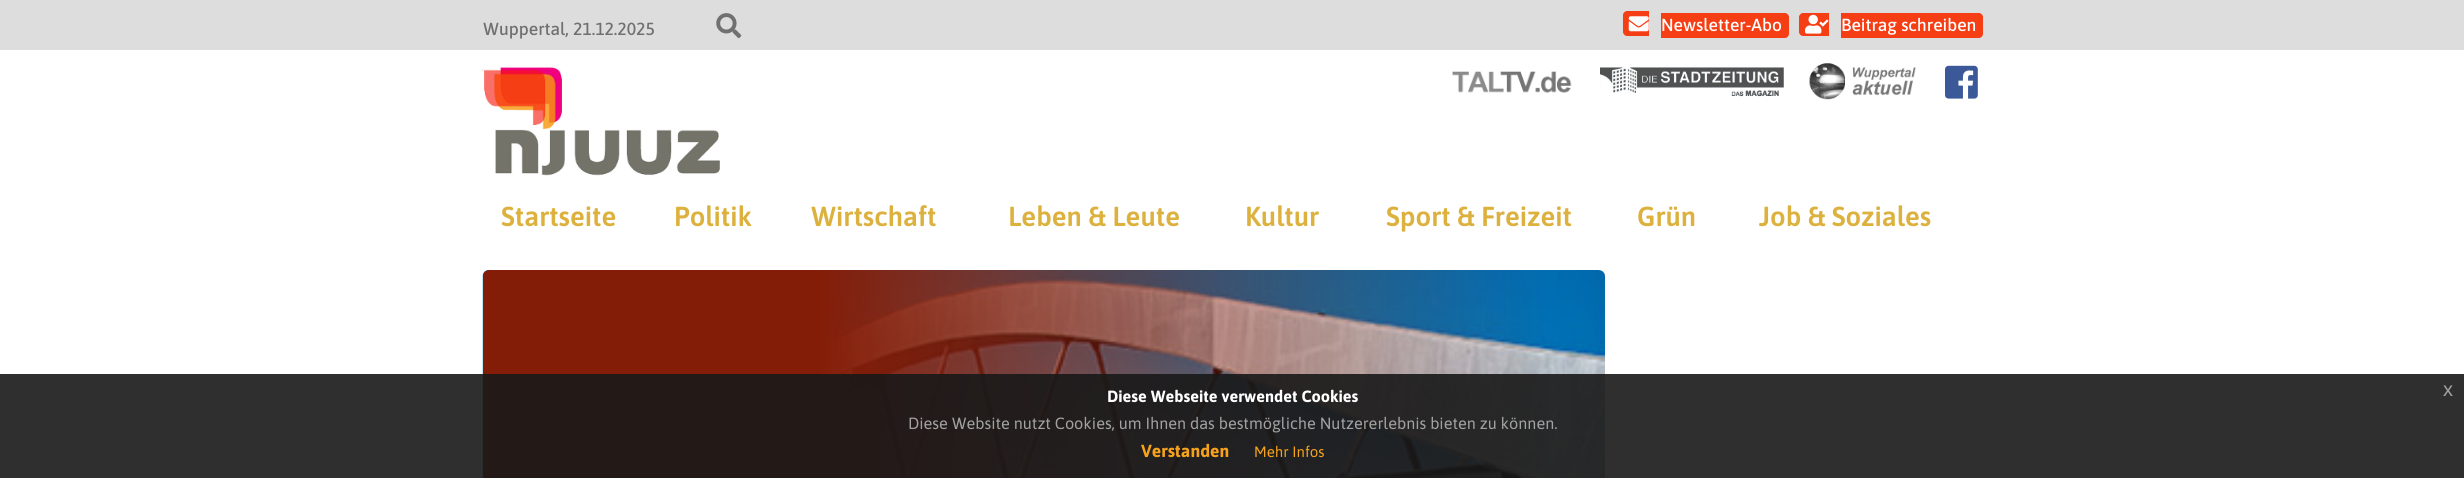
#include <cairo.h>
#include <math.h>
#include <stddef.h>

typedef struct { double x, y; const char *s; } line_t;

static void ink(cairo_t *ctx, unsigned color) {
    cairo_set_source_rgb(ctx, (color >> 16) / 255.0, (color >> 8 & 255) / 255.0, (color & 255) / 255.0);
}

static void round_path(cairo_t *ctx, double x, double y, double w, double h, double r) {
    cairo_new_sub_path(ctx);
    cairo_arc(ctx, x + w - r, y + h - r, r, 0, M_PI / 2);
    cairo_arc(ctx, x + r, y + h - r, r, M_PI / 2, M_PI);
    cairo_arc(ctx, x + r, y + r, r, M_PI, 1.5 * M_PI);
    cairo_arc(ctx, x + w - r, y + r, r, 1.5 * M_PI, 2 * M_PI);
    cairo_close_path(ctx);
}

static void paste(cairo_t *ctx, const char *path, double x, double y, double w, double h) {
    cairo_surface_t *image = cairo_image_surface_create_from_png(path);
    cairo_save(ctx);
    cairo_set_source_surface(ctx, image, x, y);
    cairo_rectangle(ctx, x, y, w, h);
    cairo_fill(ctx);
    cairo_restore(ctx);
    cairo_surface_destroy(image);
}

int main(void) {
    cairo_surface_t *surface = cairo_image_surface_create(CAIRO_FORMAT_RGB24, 2464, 478);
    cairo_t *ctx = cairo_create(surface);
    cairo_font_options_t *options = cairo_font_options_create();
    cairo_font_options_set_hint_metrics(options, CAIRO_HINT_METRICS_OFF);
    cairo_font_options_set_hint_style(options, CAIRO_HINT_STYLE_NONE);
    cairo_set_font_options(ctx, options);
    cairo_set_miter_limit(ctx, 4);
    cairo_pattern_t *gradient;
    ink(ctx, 0xFFFFFF);
    cairo_paint(ctx);
    ink(ctx, 0xDDDDDD);
    cairo_rectangle(ctx, 0, 0, 2464, 50);
    cairo_fill(ctx);
    cairo_select_font_face(ctx, "Asap Medium", CAIRO_FONT_SLANT_NORMAL, CAIRO_FONT_WEIGHT_NORMAL);
    cairo_set_font_size(ctx, 17.5);
    ink(ctx, 0x707070);
    cairo_move_to(ctx, 483, 35);
    cairo_show_text(ctx, "Wuppertal, 21.12.2025");
    paste(ctx, "media/1.png", 716, 13, 26, 26);
    ink(ctx, 0xF63E14);
    cairo_new_path(ctx);
    cairo_move_to(ctx, 1627, 11);
    cairo_line_to(ctx, 1649, 11);
    cairo_line_to(ctx, 1649, 36);
    cairo_line_to(ctx, 1627, 36);
    cairo_curve_to(ctx, 1625, 36, 1623, 34, 1623, 32);
    cairo_line_to(ctx, 1623, 15);
    cairo_curve_to(ctx, 1623, 13, 1625, 11, 1627, 11);
    cairo_close_path(ctx);
    cairo_fill(ctx);
    paste(ctx, "media/2.png", 1628, 16, 21, 16);
    cairo_new_path(ctx);
    cairo_move_to(ctx, 1661, 13);
    cairo_line_to(ctx, 1785, 13);
    cairo_curve_to(ctx, 1787, 13, 1789, 15, 1789, 17);
    cairo_line_to(ctx, 1789, 34);
    cairo_curve_to(ctx, 1789, 36, 1787, 38, 1785, 38);
    cairo_line_to(ctx, 1661, 38);
    cairo_close_path(ctx);
    cairo_fill(ctx);
    ink(ctx, 0xFFFFFF);
    cairo_move_to(ctx, 1661, 31);
    cairo_show_text(ctx, "Newsletter-Abo");
    ink(ctx, 0xF63E14);
    cairo_new_path(ctx);
    cairo_move_to(ctx, 1803, 13);
    cairo_line_to(ctx, 1829, 13);
    cairo_line_to(ctx, 1829, 36);
    cairo_line_to(ctx, 1803, 36);
    cairo_curve_to(ctx, 1801, 36, 1799, 34, 1799, 32);
    cairo_line_to(ctx, 1799, 17);
    cairo_curve_to(ctx, 1799, 15, 1801, 13, 1803, 13);
    cairo_close_path(ctx);
    cairo_fill(ctx);
    paste(ctx, "media/3.png", 1805, 14, 24, 20);
    cairo_new_path(ctx);
    cairo_move_to(ctx, 1841, 13);
    cairo_line_to(ctx, 1979, 13);
    cairo_curve_to(ctx, 1981, 13, 1983, 15, 1983, 17);
    cairo_line_to(ctx, 1983, 34);
    cairo_curve_to(ctx, 1983, 36, 1981, 38, 1979, 38);
    cairo_line_to(ctx, 1841, 38);
    cairo_close_path(ctx);
    cairo_fill(ctx);
    ink(ctx, 0xFFFFFF);
    cairo_move_to(ctx, 1841, 31);
    cairo_show_text(ctx, "Beitrag schreiben");
    paste(ctx, "media/4.png", 482, 67, 238, 109);
    paste(ctx, "media/5.png", 1452, 71, 120, 22);
    paste(ctx, "media/6.png", 1600, 66, 184, 31);
    paste(ctx, "media/7.png", 1809, 63, 107, 37);
    paste(ctx, "media/8.png", 1945, 65, 33, 34);
    cairo_select_font_face(ctx, "Asap SemiBold", CAIRO_FONT_SLANT_NORMAL, CAIRO_FONT_WEIGHT_NORMAL);
    cairo_set_font_size(ctx, 27.5);
    ink(ctx, 0xDCB13E);
    {
        static const line_t items[] = {
            {501, 226, "Startseite"},
            {674, 226, "Politik"},
            {811, 226, "Wirtschaft"},
            {1008, 226, "Leben & Leute"},
            {1245, 226, "Kultur"},
            {1386, 226, "Sport & Freizeit"},
            {1637, 226, "Grün"},
            {1759, 226, "Job & Soziales"},
        };
        for (size_t i = 0; i < sizeof items / sizeof *items; i++) {
            cairo_move_to(ctx, items[i].x, items[i].y);
            cairo_show_text(ctx, items[i].s);
        }
    }
    paste(ctx, "media/9.png", 482, 270, 1123, 208);
    gradient = cairo_pattern_create_linear(483, 395, 1605, 395);
    cairo_pattern_add_color_stop_rgba(gradient, 0.3, 0.518, 0.114, 0.031, 1);
    cairo_pattern_add_color_stop_rgba(gradient, 0.95, 0.518, 0.114, 0.031, 0);
    cairo_set_source(ctx, gradient);
    cairo_pattern_destroy(gradient);
    round_path(ctx, 483, 270, 1122, 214, 6);
    cairo_fill(ctx);
    cairo_set_source_rgba(ctx, 0.098, 0.098, 0.098, 0.9);
    cairo_rectangle(ctx, 0, 374, 2464, 104);
    cairo_fill(ctx);
    cairo_select_font_face(ctx, "Asap", CAIRO_FONT_SLANT_NORMAL, CAIRO_FONT_WEIGHT_BOLD);
    cairo_set_font_size(ctx, 16.25);
    ink(ctx, 0xFFFFFF);
    cairo_move_to(ctx, 1107, 402);
    cairo_show_text(ctx, "Diese Webseite verwendet Cookies");
    cairo_select_font_face(ctx, "Liberation Sans", CAIRO_FONT_SLANT_NORMAL, CAIRO_FONT_WEIGHT_NORMAL);
    cairo_set_font_size(ctx, 20);
    ink(ctx, 0xA2A2A2);
    cairo_move_to(ctx, 2443, 396);
    cairo_show_text(ctx, "x");
    cairo_select_font_face(ctx, "Asap", CAIRO_FONT_SLANT_NORMAL, CAIRO_FONT_WEIGHT_NORMAL);
    cairo_set_font_size(ctx, 16.25);
    cairo_move_to(ctx, 908, 429);
    cairo_show_text(ctx, "Diese Website nutzt Cookies, um Ihnen das bestmögliche Nutzererlebnis bieten zu können.");
    cairo_select_font_face(ctx, "Asap", CAIRO_FONT_SLANT_NORMAL, CAIRO_FONT_WEIGHT_BOLD);
    cairo_set_font_size(ctx, 17.5);
    ink(ctx, 0xF6A21D);
    cairo_move_to(ctx, 1141, 457);
    cairo_show_text(ctx, "Verstanden");
    cairo_select_font_face(ctx, "Asap", CAIRO_FONT_SLANT_NORMAL, CAIRO_FONT_WEIGHT_NORMAL);
    cairo_set_font_size(ctx, 15);
    cairo_move_to(ctx, 1254, 457);
    cairo_show_text(ctx, "Mehr Infos");
    cairo_surface_write_to_png(surface, "image.png");
    cairo_font_options_destroy(options);
    cairo_destroy(ctx);
    cairo_surface_destroy(surface);
    return 0;
}
